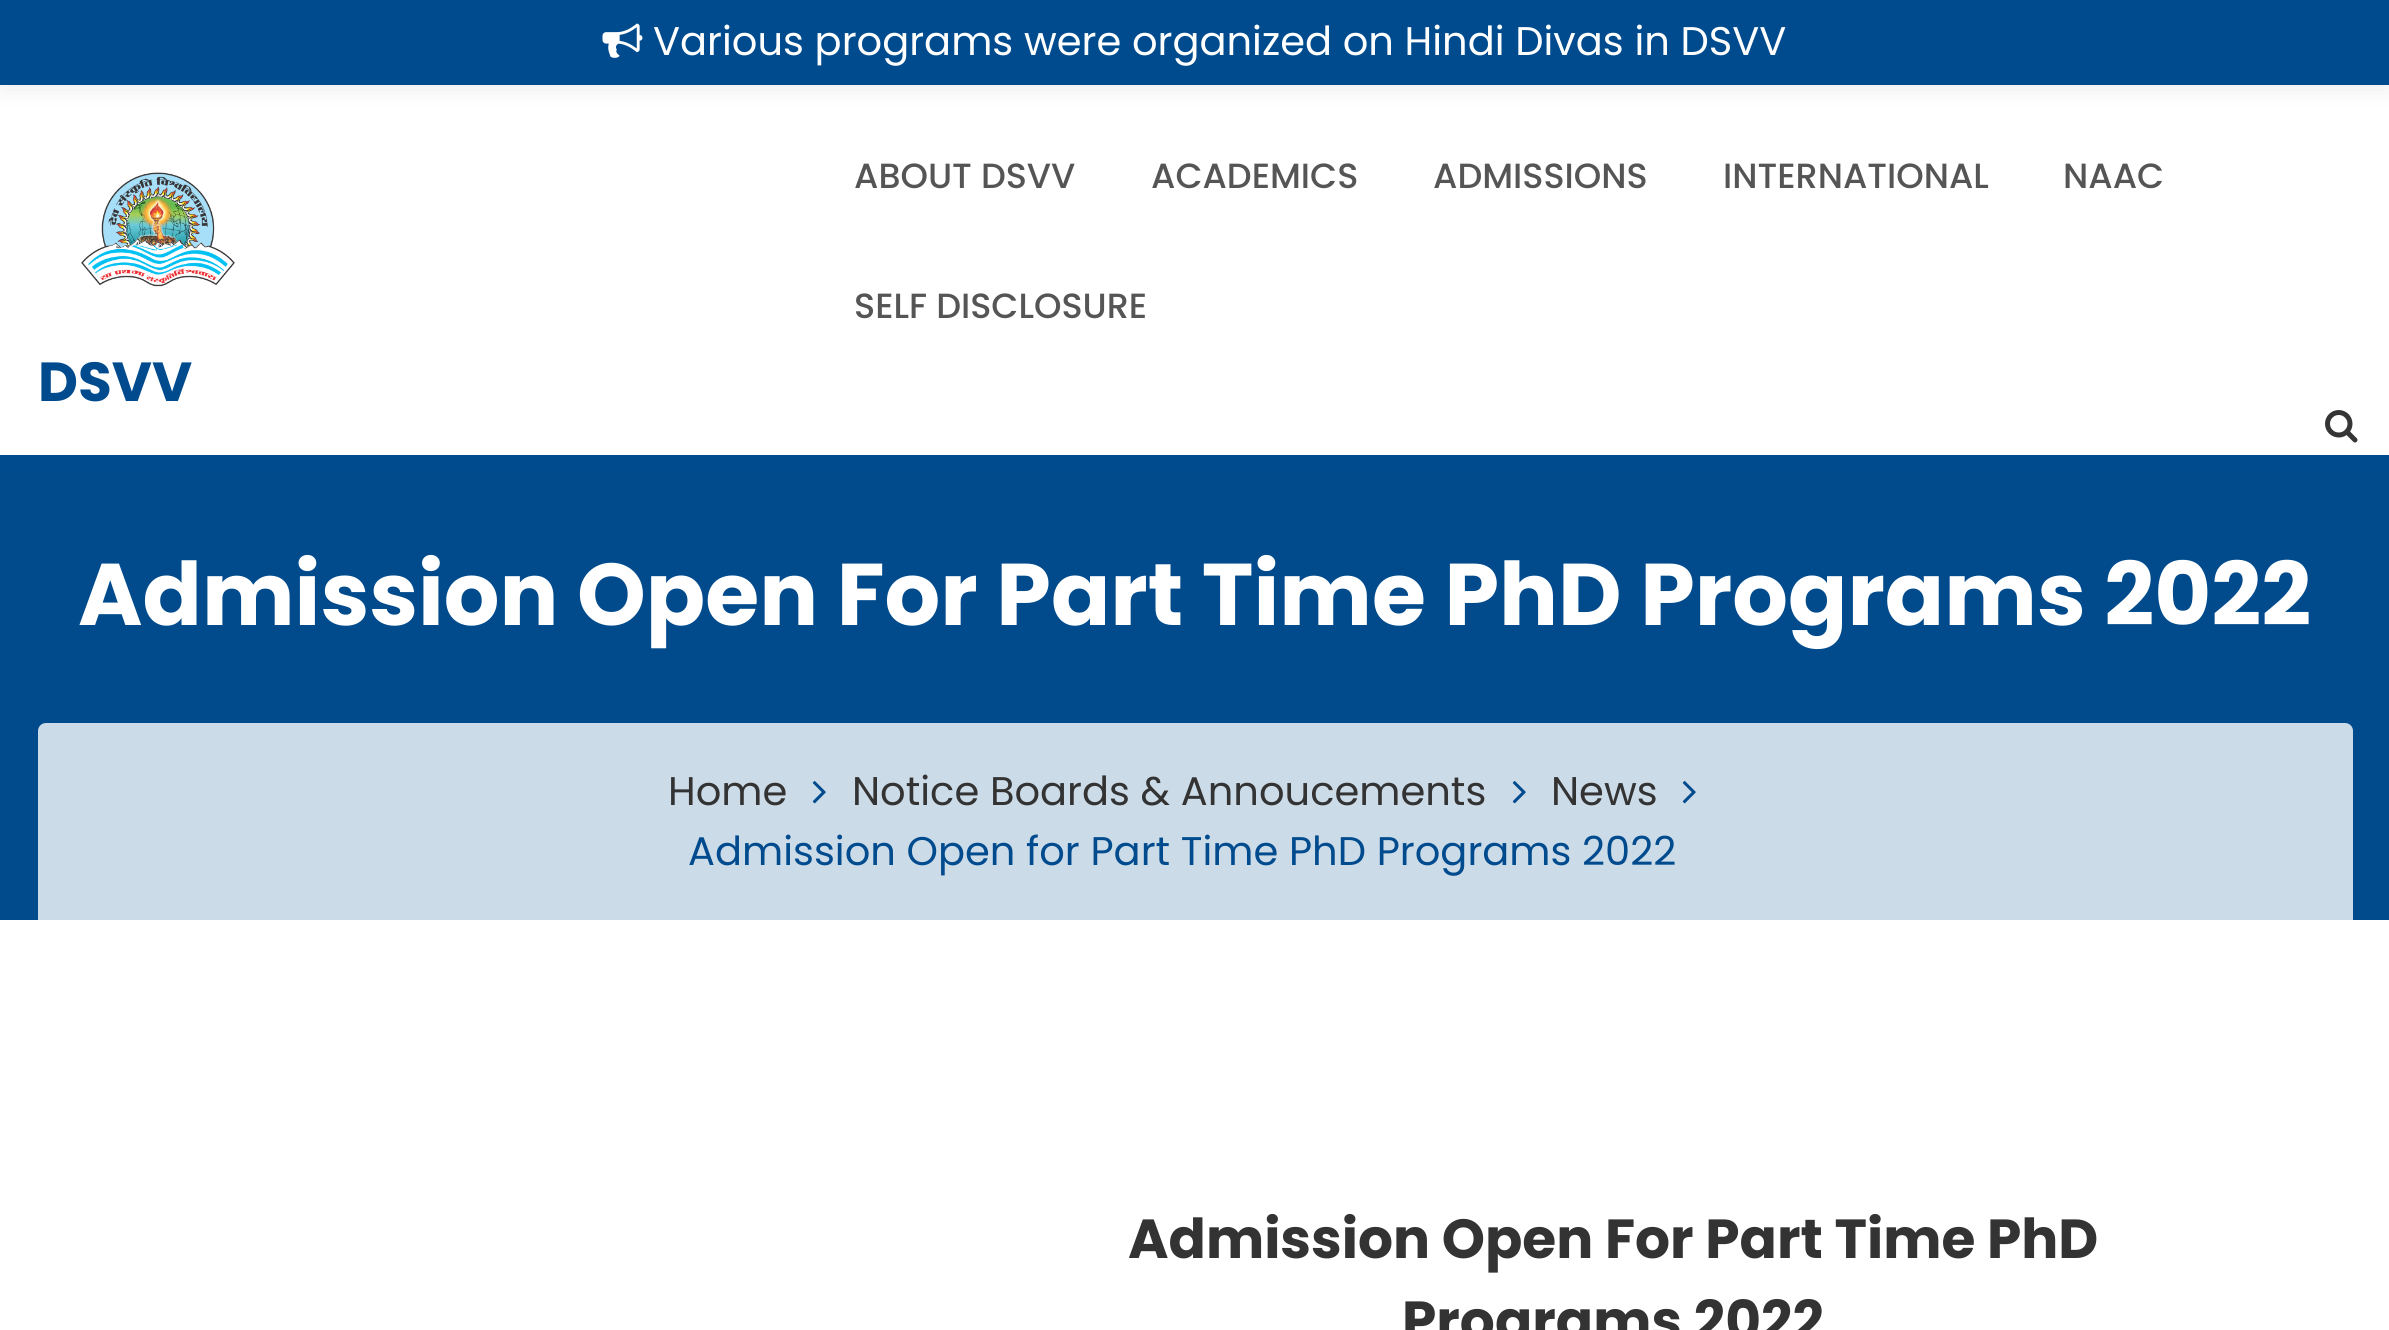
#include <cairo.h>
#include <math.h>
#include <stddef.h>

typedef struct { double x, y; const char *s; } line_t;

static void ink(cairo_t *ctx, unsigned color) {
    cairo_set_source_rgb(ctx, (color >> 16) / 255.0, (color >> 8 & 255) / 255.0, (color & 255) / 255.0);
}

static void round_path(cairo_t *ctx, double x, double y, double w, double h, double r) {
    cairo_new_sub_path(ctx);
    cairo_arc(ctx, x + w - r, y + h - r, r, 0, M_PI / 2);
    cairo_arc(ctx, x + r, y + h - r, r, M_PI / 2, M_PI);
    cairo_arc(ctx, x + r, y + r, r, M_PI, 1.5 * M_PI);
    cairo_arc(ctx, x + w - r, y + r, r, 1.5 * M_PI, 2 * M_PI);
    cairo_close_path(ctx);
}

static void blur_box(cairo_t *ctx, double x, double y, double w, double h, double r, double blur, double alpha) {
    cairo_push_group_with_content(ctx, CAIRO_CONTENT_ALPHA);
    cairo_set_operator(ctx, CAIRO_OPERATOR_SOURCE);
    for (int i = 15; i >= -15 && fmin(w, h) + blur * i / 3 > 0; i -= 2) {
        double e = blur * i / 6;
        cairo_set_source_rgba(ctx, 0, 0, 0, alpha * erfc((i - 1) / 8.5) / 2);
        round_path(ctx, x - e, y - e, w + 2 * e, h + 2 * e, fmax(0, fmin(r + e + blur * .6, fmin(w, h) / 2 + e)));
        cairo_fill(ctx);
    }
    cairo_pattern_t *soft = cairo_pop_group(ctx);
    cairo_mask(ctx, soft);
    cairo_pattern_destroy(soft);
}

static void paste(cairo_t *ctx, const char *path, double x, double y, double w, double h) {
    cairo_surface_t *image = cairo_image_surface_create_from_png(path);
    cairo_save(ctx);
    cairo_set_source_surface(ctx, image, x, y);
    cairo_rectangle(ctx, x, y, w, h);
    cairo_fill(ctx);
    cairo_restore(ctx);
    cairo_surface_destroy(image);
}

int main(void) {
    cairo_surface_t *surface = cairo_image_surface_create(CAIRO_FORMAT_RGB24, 2389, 1330);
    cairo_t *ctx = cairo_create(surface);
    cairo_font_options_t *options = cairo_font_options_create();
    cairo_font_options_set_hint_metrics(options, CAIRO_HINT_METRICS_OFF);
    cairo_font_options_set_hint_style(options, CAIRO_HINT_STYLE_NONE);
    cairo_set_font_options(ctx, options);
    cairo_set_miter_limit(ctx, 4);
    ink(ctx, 0xFFFFFF);
    cairo_paint(ctx);
    ink(ctx, 0x000000);
    blur_box(ctx, 0, 0, 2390, 85, 0, 12.5, 0.1);
    ink(ctx, 0x004B8E);
    cairo_rectangle(ctx, 0, 0, 2389, 85);
    cairo_fill(ctx);
    paste(ctx, "media/1.png", 602, 23, 41, 35);
    cairo_select_font_face(ctx, "Poppins", CAIRO_FONT_SLANT_NORMAL, CAIRO_FONT_WEIGHT_NORMAL);
    cairo_set_font_size(ctx, 40);
    ink(ctx, 0xFFFFFF);
    cairo_move_to(ctx, 653, 55);
    cairo_show_text(ctx, "Various programs were organized on Hindi Divas in DSVV");
    ink(ctx, 0x004B8E);
    cairo_rectangle(ctx, 0, 455, 2389, 13);
    cairo_fill(ctx);
    cairo_select_font_face(ctx, "Poppins Medium", CAIRO_FONT_SLANT_NORMAL, CAIRO_FONT_WEIGHT_NORMAL);
    cairo_set_font_size(ctx, 35);
    ink(ctx, 0x555555);
    {
        static const line_t items[] = {
            {854, 188, "ABOUT DSVV"},
            {1151, 188, "ACADEMICS"},
            {1433, 188, "ADMISSIONS"},
            {1723, 188, "INTERNATIONAL"},
            {2063, 188, "NAAC"},
            {854, 318, "SELF DISCLOSURE"},
        };
        for (size_t i = 0; i < sizeof items / sizeof *items; i++) {
            cairo_move_to(ctx, items[i].x, items[i].y);
            cairo_show_text(ctx, items[i].s);
        }
    }
    paste(ctx, "media/2.png", 2325, 410, 33, 33);
    paste(ctx, "media/3.png", 81, 172, 154, 115);
    cairo_select_font_face(ctx, "Poppins", CAIRO_FONT_SLANT_NORMAL, CAIRO_FONT_WEIGHT_BOLD);
    cairo_set_font_size(ctx, 55);
    ink(ctx, 0x004B8E);
    cairo_move_to(ctx, 38, 401);
    cairo_show_text(ctx, "DSVV");
    ink(ctx, 0x014B8D);
    cairo_rectangle(ctx, 0, 468, 2389, 452);
    cairo_fill(ctx);
    cairo_set_font_size(ctx, 87.5);
    ink(ctx, 0xFFFFFF);
    cairo_move_to(ctx, 78, 625);
    cairo_show_text(ctx, "Admission Open For Part Time PhD Programs 2022");
    ink(ctx, 0xCCDBE8);
    cairo_new_path(ctx);
    cairo_move_to(ctx, 46, 723);
    cairo_line_to(ctx, 2345, 723);
    cairo_curve_to(ctx, 2349.5, 723, 2353, 726.5, 2353, 731);
    cairo_line_to(ctx, 2353, 920);
    cairo_line_to(ctx, 38, 920);
    cairo_line_to(ctx, 38, 731);
    cairo_curve_to(ctx, 38, 726.5, 41.5, 723, 46, 723);
    cairo_close_path(ctx);
    cairo_fill(ctx);
    cairo_select_font_face(ctx, "Poppins", CAIRO_FONT_SLANT_NORMAL, CAIRO_FONT_WEIGHT_NORMAL);
    cairo_set_font_size(ctx, 40);
    ink(ctx, 0x333333);
    cairo_move_to(ctx, 668, 805);
    cairo_show_text(ctx, "Home");
    paste(ctx, "media/4.png", 812, 781, 14, 23);
    cairo_move_to(ctx, 852, 805);
    cairo_show_text(ctx, "Notice Boards & Annoucements");
    paste(ctx, "media/4.png", 1512, 781, 14, 23);
    cairo_move_to(ctx, 1551, 805);
    cairo_show_text(ctx, "News");
    paste(ctx, "media/4.png", 1682, 781, 14, 23);
    ink(ctx, 0x004B8E);
    cairo_move_to(ctx, 688, 865);
    cairo_show_text(ctx, "Admission Open for Part Time PhD Programs 2022");
    cairo_select_font_face(ctx, "Poppins", CAIRO_FONT_SLANT_NORMAL, CAIRO_FONT_WEIGHT_BOLD);
    cairo_set_font_size(ctx, 55);
    ink(ctx, 0x333333);
    cairo_move_to(ctx, 1128, 1258);
    cairo_show_text(ctx, "Admission Open For Part Time PhD");
    cairo_move_to(ctx, 1402, 1340);
    cairo_show_text(ctx, "Programs 2022");
    cairo_surface_write_to_png(surface, "image.png");
    cairo_font_options_destroy(options);
    cairo_destroy(ctx);
    cairo_surface_destroy(surface);
    return 0;
}
